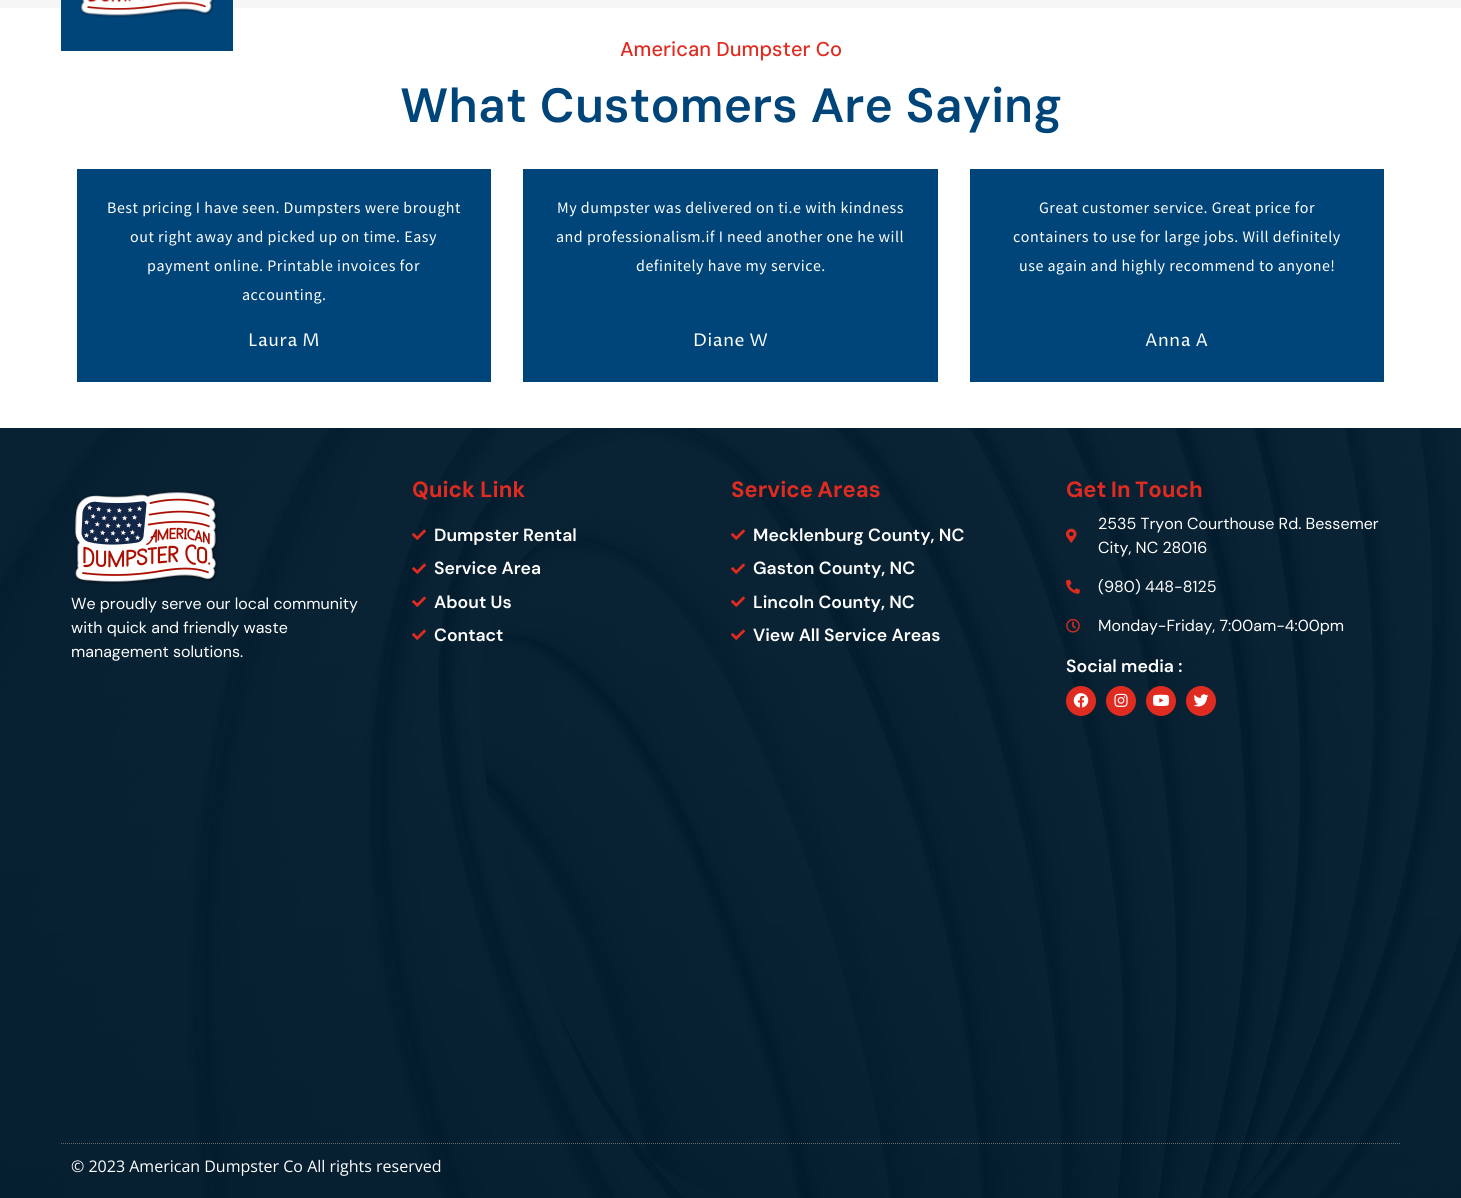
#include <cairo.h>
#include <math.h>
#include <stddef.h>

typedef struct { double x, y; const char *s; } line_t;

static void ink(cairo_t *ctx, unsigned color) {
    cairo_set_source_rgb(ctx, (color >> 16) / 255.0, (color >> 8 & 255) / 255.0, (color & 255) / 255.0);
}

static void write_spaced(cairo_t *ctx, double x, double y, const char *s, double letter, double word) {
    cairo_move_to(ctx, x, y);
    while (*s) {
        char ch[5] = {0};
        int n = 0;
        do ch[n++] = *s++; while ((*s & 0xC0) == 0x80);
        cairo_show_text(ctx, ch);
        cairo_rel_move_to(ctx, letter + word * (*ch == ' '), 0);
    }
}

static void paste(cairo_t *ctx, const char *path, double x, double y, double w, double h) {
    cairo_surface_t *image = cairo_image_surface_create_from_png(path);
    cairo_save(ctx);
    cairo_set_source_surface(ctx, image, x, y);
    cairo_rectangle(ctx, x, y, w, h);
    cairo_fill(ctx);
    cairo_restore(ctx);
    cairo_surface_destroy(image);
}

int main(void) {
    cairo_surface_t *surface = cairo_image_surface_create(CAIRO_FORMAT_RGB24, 1461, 1198);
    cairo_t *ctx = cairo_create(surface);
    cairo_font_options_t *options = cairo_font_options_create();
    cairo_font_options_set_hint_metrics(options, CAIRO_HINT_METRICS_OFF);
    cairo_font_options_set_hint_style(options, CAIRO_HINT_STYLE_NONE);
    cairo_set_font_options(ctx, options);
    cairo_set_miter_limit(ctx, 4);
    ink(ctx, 0xFFFFFF);
    cairo_paint(ctx);
    ink(ctx, 0xF6F6F6);
    cairo_rectangle(ctx, 0, 0, 1461, 8);
    cairo_fill(ctx);
    ink(ctx, 0x00457A);
    cairo_rectangle(ctx, 61, 0, 172, 51);
    cairo_fill(ctx);
    paste(ctx, "media/1.png", 80, 0, 135, 18);
    cairo_select_font_face(ctx, "DM Sans Medium", CAIRO_FONT_SLANT_NORMAL, CAIRO_FONT_WEIGHT_NORMAL);
    cairo_set_font_size(ctx, 20);
    ink(ctx, 0xE02B20);
    cairo_move_to(ctx, 620, 56);
    cairo_show_text(ctx, "American Dumpster Co");
    cairo_select_font_face(ctx, "DM Sans SemiBold", CAIRO_FONT_SLANT_NORMAL, CAIRO_FONT_WEIGHT_NORMAL);
    cairo_set_font_size(ctx, 48);
    ink(ctx, 0x00457A);
    write_spaced(ctx, 400, 122, "What Customers Are Saying", 0, 1);
    cairo_rectangle(ctx, 77, 169, 414, 213);
    cairo_fill(ctx);
    cairo_select_font_face(ctx, "Source Sans Pro", CAIRO_FONT_SLANT_NORMAL, CAIRO_FONT_WEIGHT_NORMAL);
    cairo_set_font_size(ctx, 16);
    ink(ctx, 0xFFFFFF);
    {
        static const line_t items[] = {
            {107, 213, "Best pricing I have seen. Dumpsters were brought"},
            {130, 242, "out right away and picked up on time. Easy"},
            {147, 271, "payment online. Printable invoices for"},
            {242, 300, "accounting."},
        };
        for (size_t i = 0; i < sizeof items / sizeof *items; i++) {
            write_spaced(ctx, items[i].x, items[i].y, items[i].s, 0.5, 0);
        }
    }
    cairo_select_font_face(ctx, "Proza Libre", CAIRO_FONT_SLANT_NORMAL, CAIRO_FONT_WEIGHT_NORMAL);
    cairo_set_font_size(ctx, 17.6);
    write_spaced(ctx, 248, 346, "Laura M", 0.5, 0);
    ink(ctx, 0x00457A);
    cairo_rectangle(ctx, 523, 169, 415, 213);
    cairo_fill(ctx);
    cairo_select_font_face(ctx, "Source Sans Pro", CAIRO_FONT_SLANT_NORMAL, CAIRO_FONT_WEIGHT_NORMAL);
    cairo_set_font_size(ctx, 16);
    ink(ctx, 0xFFFFFF);
    {
        static const line_t items[] = {
            {557, 213, "My dumpster was delivered on ti.e with kindness"},
            {556, 242, "and professionalism.if I need another one he will"},
            {636, 271, "definitely have my service."},
        };
        for (size_t i = 0; i < sizeof items / sizeof *items; i++) {
            write_spaced(ctx, items[i].x, items[i].y, items[i].s, 0.5, 0);
        }
    }
    cairo_select_font_face(ctx, "Proza Libre", CAIRO_FONT_SLANT_NORMAL, CAIRO_FONT_WEIGHT_NORMAL);
    cairo_set_font_size(ctx, 17.6);
    write_spaced(ctx, 693, 346, "Diane W", 0.5, 0);
    ink(ctx, 0x00457A);
    cairo_rectangle(ctx, 970, 169, 414, 213);
    cairo_fill(ctx);
    cairo_select_font_face(ctx, "Source Sans Pro", CAIRO_FONT_SLANT_NORMAL, CAIRO_FONT_WEIGHT_NORMAL);
    cairo_set_font_size(ctx, 16);
    ink(ctx, 0xFFFFFF);
    {
        static const line_t items[] = {
            {1039, 213, "Great customer service. Great price for"},
            {1013, 242, "containers to use for large jobs. Will definitely"},
            {1019, 271, "use again and highly recommend to anyone!"},
        };
        for (size_t i = 0; i < sizeof items / sizeof *items; i++) {
            write_spaced(ctx, items[i].x, items[i].y, items[i].s, 0.5, 0);
        }
    }
    cairo_select_font_face(ctx, "Proza Libre", CAIRO_FONT_SLANT_NORMAL, CAIRO_FONT_WEIGHT_NORMAL);
    cairo_set_font_size(ctx, 17.6);
    write_spaced(ctx, 1145, 346, "Anna A", 0.5, 0);
    ink(ctx, 0x00213A);
    cairo_rectangle(ctx, 0, 428, 1461, 770);
    cairo_fill(ctx);
    paste(ctx, "media/2.png", 0, 428, 1461, 770);
    paste(ctx, "media/3.png", 74, 491, 144, 93);
    cairo_select_font_face(ctx, "DM Sans", CAIRO_FONT_SLANT_NORMAL, CAIRO_FONT_WEIGHT_NORMAL);
    cairo_set_font_size(ctx, 16);
    ink(ctx, 0xFFFFFF);
    {
        static const line_t items[] = {
            {71, 609, "We proudly serve our local community"},
            {71, 633, "with quick and friendly waste"},
            {71, 657, "management solutions."},
        };
        for (size_t i = 0; i < sizeof items / sizeof *items; i++) {
            cairo_move_to(ctx, items[i].x, items[i].y);
            cairo_show_text(ctx, items[i].s);
        }
    }
    cairo_select_font_face(ctx, "DM Sans", CAIRO_FONT_SLANT_NORMAL, CAIRO_FONT_WEIGHT_BOLD);
    cairo_set_font_size(ctx, 22);
    ink(ctx, 0xE02B20);
    cairo_move_to(ctx, 412, 497);
    cairo_show_text(ctx, "Quick Link");
    paste(ctx, "media/4.png", 412, 529, 14, 11);
    cairo_select_font_face(ctx, "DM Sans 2 SemiBold", CAIRO_FONT_SLANT_NORMAL, CAIRO_FONT_WEIGHT_NORMAL);
    cairo_set_font_size(ctx, 17.6);
    ink(ctx, 0xFFFFFF);
    cairo_move_to(ctx, 434, 541);
    cairo_show_text(ctx, "Dumpster Rental");
    paste(ctx, "media/5.png", 412, 563, 14, 11);
    cairo_move_to(ctx, 434, 574);
    cairo_show_text(ctx, "Service Area");
    paste(ctx, "media/6.png", 412, 596, 14, 11);
    cairo_move_to(ctx, 434, 608);
    cairo_show_text(ctx, "About Us");
    paste(ctx, "media/7.png", 412, 629, 14, 11);
    cairo_move_to(ctx, 434, 641);
    cairo_show_text(ctx, "Contact");
    cairo_select_font_face(ctx, "DM Sans", CAIRO_FONT_SLANT_NORMAL, CAIRO_FONT_WEIGHT_BOLD);
    cairo_set_font_size(ctx, 22);
    ink(ctx, 0xE02B20);
    write_spaced(ctx, 731, 497, "Service Areas", 0, -1);
    paste(ctx, "media/8.png", 731, 529, 14, 11);
    cairo_select_font_face(ctx, "DM Sans 2 SemiBold", CAIRO_FONT_SLANT_NORMAL, CAIRO_FONT_WEIGHT_NORMAL);
    cairo_set_font_size(ctx, 17.6);
    ink(ctx, 0xFFFFFF);
    cairo_move_to(ctx, 753, 541);
    cairo_show_text(ctx, "Mecklenburg County, NC");
    paste(ctx, "media/8.png", 731, 563, 14, 11);
    cairo_move_to(ctx, 753, 574);
    cairo_show_text(ctx, "Gaston County, NC");
    paste(ctx, "media/9.png", 731, 596, 14, 11);
    cairo_move_to(ctx, 753, 608);
    cairo_show_text(ctx, "Lincoln County, NC");
    paste(ctx, "media/10.png", 731, 629, 14, 11);
    cairo_move_to(ctx, 753, 641);
    cairo_show_text(ctx, "View All Service Areas");
    cairo_select_font_face(ctx, "DM Sans", CAIRO_FONT_SLANT_NORMAL, CAIRO_FONT_WEIGHT_BOLD);
    cairo_set_font_size(ctx, 22);
    ink(ctx, 0xE02B20);
    write_spaced(ctx, 1066, 497, "Get In Touch", 0, -1);
    paste(ctx, "media/11.png", 1066, 528, 11, 15);
    cairo_select_font_face(ctx, "DM Sans", CAIRO_FONT_SLANT_NORMAL, CAIRO_FONT_WEIGHT_NORMAL);
    cairo_set_font_size(ctx, 16);
    ink(ctx, 0xFFFFFF);
    cairo_move_to(ctx, 1098, 529);
    cairo_show_text(ctx, "2535 Tryon Courthouse Rd. Bessemer");
    cairo_move_to(ctx, 1098, 553);
    cairo_show_text(ctx, "City, NC 28016");
    paste(ctx, "media/12.png", 1066, 579, 14, 15);
    cairo_move_to(ctx, 1098, 592);
    cairo_show_text(ctx, "(980) 448-8125");
    paste(ctx, "media/13.png", 1066, 619, 14, 14);
    cairo_move_to(ctx, 1098, 631);
    cairo_show_text(ctx, "Monday-Friday, 7:00am-4:00pm");
    cairo_select_font_face(ctx, "DM Sans 2 SemiBold", CAIRO_FONT_SLANT_NORMAL, CAIRO_FONT_WEIGHT_NORMAL);
    cairo_set_font_size(ctx, 17.6);
    cairo_move_to(ctx, 1066, 672);
    cairo_show_text(ctx, "Social media :");
    ink(ctx, 0xE02B20);
    cairo_new_path(ctx);
    cairo_arc(ctx, 1081, 701, 15, 0, 2 * M_PI);
    cairo_fill(ctx);
    paste(ctx, "media/14.png", 1073, 693, 16, 15);
    cairo_arc(ctx, 1121, 701, 15, 0, 2 * M_PI);
    cairo_fill(ctx);
    paste(ctx, "media/15.png", 1114, 693, 14, 14);
    cairo_arc(ctx, 1161, 701, 15, 0, 2 * M_PI);
    cairo_fill(ctx);
    paste(ctx, "media/16.png", 1153, 694, 16, 12);
    cairo_arc(ctx, 1201, 701, 15, 0, 2 * M_PI);
    cairo_fill(ctx);
    paste(ctx, "media/17.png", 1193, 694, 16, 13);
    cairo_new_path(ctx);
    cairo_move_to(ctx, 61, 1143.5);
    cairo_line_to(ctx, 1401, 1143.5);
    ink(ctx, 0x696969);
    cairo_set_line_width(ctx, 1);
    cairo_set_dash(ctx, (double[]){1, 1}, 2, 0);
    cairo_stroke(ctx);
    cairo_select_font_face(ctx, "Open Sans", CAIRO_FONT_SLANT_NORMAL, CAIRO_FONT_WEIGHT_NORMAL);
    cairo_set_font_size(ctx, 16);
    ink(ctx, 0xFFFFFF);
    cairo_move_to(ctx, 71, 1172);
    cairo_show_text(ctx, "© 2023 American Dumpster Co All rights reserved");
    cairo_surface_write_to_png(surface, "image.png");
    cairo_font_options_destroy(options);
    cairo_destroy(ctx);
    cairo_surface_destroy(surface);
    return 0;
}
